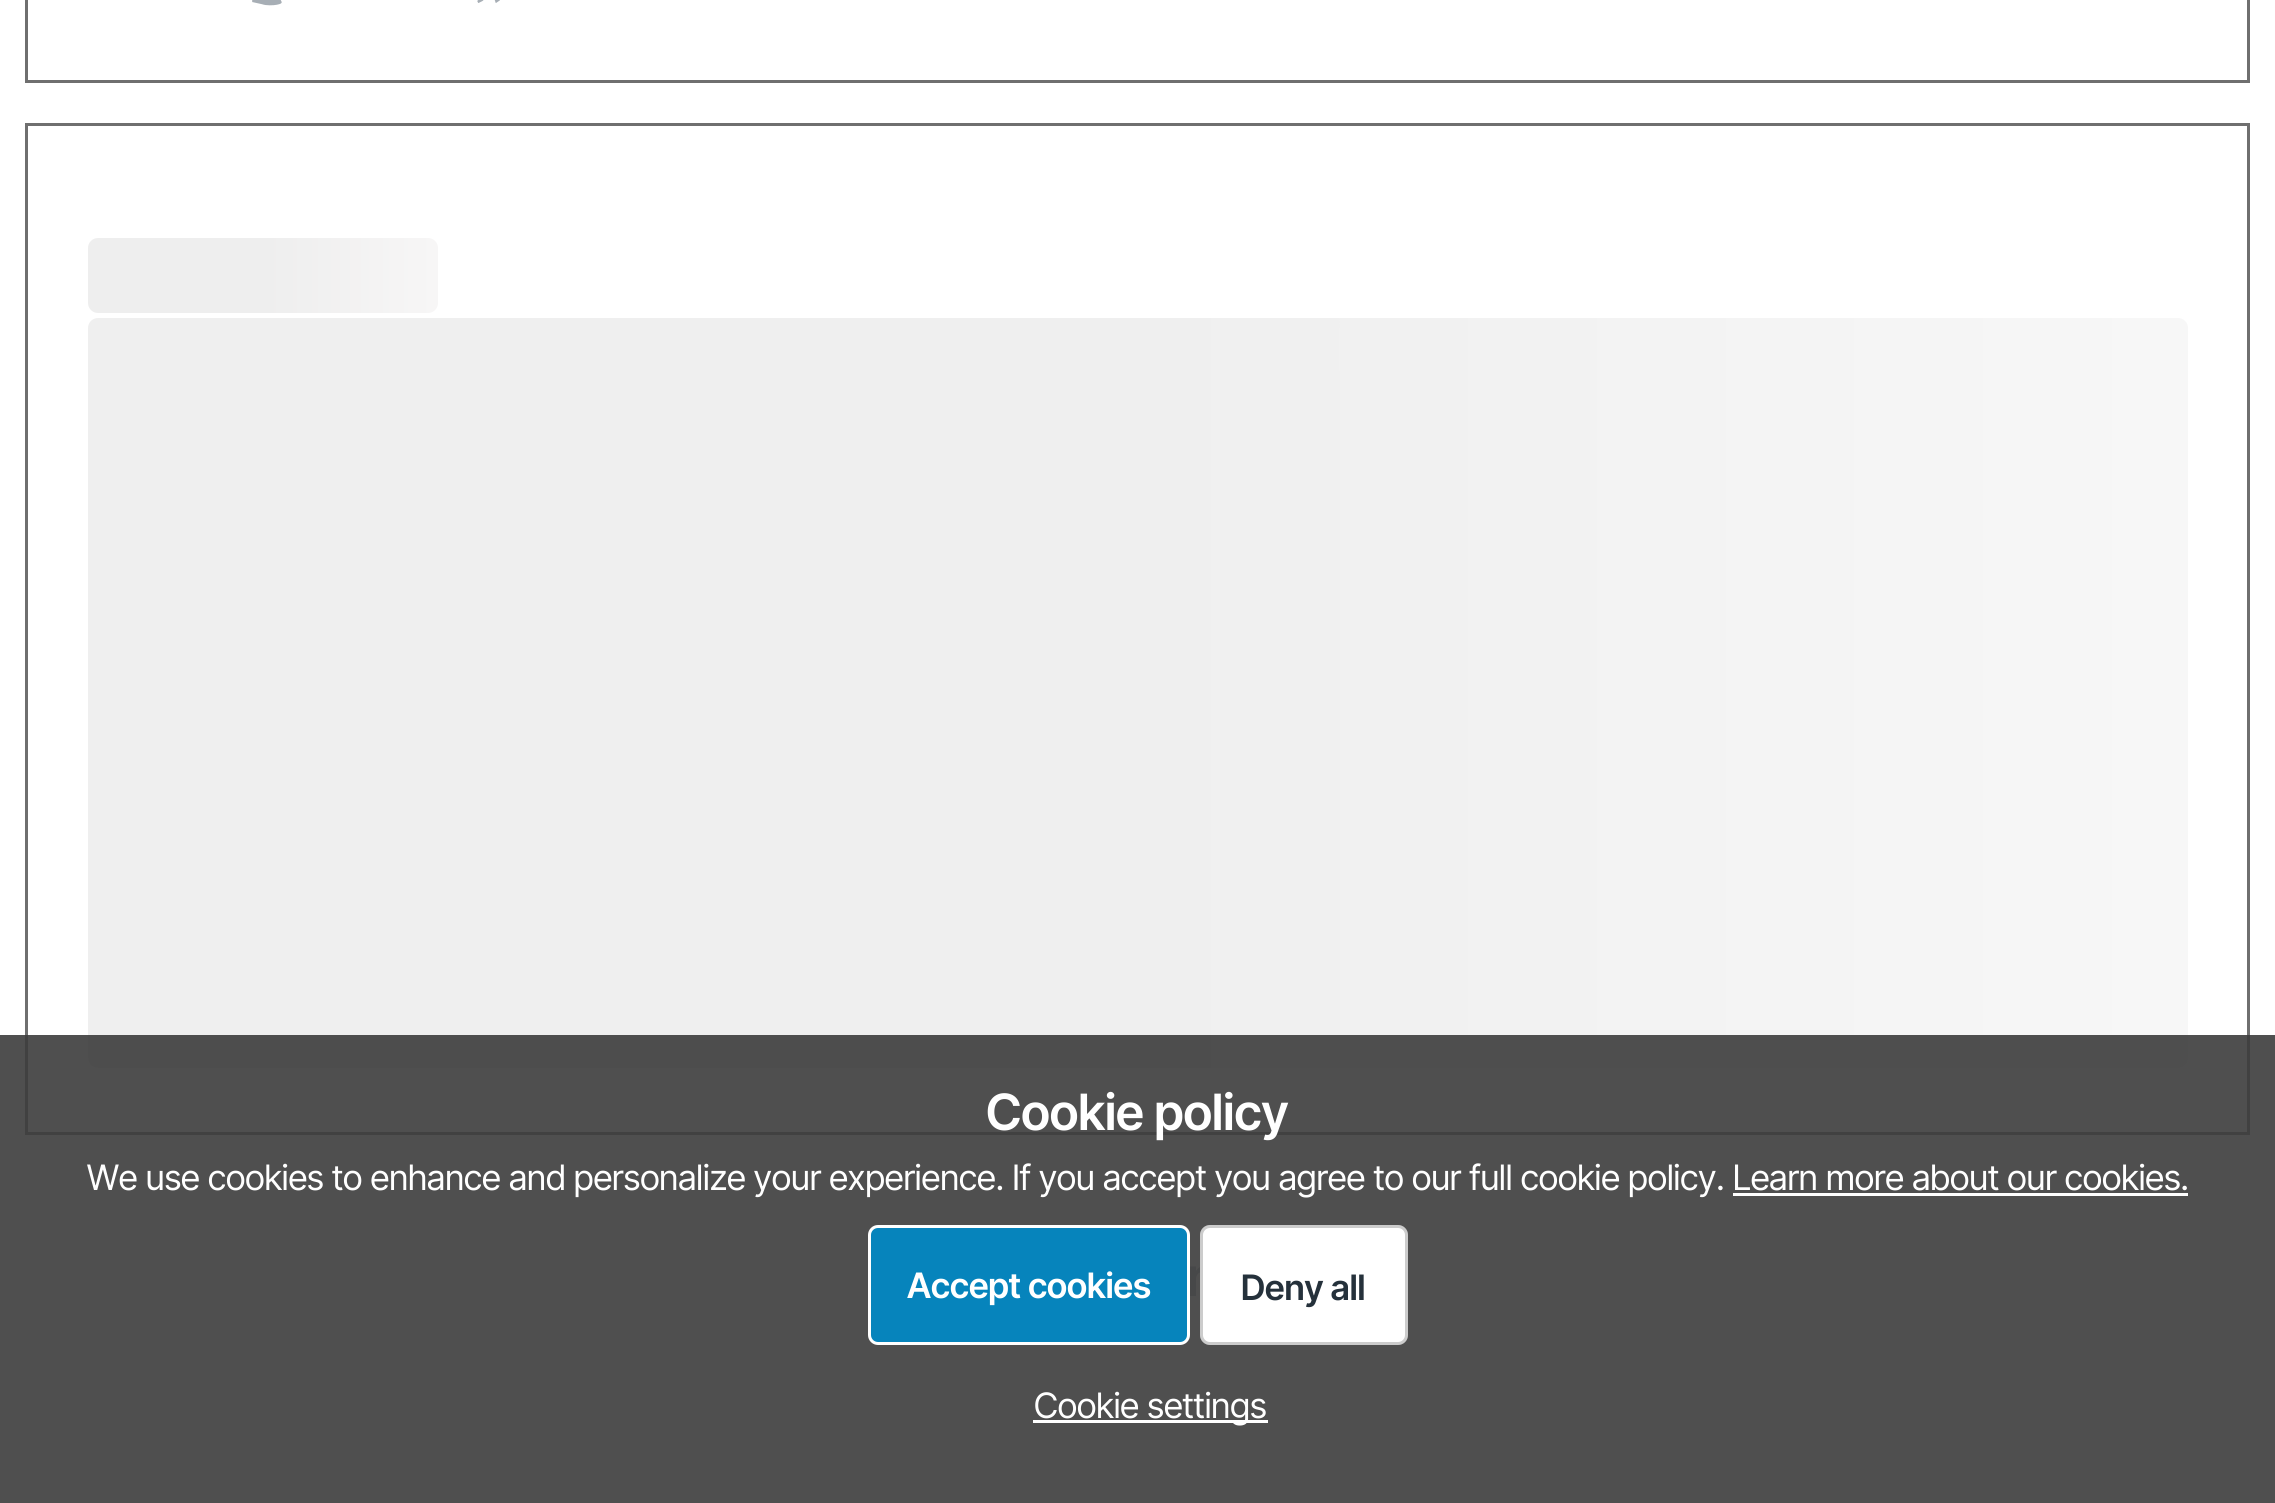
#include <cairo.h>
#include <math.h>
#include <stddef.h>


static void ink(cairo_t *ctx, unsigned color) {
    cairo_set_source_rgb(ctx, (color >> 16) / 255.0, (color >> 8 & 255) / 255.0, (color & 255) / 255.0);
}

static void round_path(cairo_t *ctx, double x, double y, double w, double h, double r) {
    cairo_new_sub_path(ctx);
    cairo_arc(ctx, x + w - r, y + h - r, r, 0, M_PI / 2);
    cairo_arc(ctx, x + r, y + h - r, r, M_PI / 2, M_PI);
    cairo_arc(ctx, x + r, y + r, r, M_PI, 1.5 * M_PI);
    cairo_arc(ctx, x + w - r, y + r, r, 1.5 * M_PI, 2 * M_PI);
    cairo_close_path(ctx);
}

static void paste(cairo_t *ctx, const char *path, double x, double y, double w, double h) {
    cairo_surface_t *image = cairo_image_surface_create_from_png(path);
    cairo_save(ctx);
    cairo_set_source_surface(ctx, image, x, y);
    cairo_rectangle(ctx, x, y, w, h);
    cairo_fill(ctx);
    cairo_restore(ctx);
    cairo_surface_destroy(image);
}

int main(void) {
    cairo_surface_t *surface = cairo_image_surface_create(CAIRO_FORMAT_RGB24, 2275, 1503);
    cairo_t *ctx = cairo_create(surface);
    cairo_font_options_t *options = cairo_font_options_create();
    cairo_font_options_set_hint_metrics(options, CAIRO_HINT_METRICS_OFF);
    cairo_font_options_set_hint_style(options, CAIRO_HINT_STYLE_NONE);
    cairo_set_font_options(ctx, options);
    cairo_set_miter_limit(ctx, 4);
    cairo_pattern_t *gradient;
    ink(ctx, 0xFFFFFF);
    cairo_paint(ctx);
    cairo_rectangle(ctx, 26.5, -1.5, 2222, 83);
    ink(ctx, 0x6F6F6F);
    cairo_set_line_width(ctx, 3);
    cairo_stroke(ctx);
    paste(ctx, "media/1.png", 252, 0, 30, 6);
    paste(ctx, "media/2.png", 477, 0, 23, 3);
    cairo_rectangle(ctx, 26.5, 124.5, 2222, 1009);
    cairo_stroke(ctx);
    gradient = cairo_pattern_create_linear(88, 275, 788, 275);
    cairo_pattern_add_color_stop_rgba(gradient, 0.25, 0.933, 0.933, 0.933, 1);
    cairo_pattern_add_color_stop_rgba(gradient, 0.5, 0.969, 0.965, 0.965, 1);
    cairo_pattern_add_color_stop_rgba(gradient, 0.75, 0.933, 0.933, 0.933, 1);
    cairo_set_source(ctx, gradient);
    cairo_pattern_destroy(gradient);
    round_path(ctx, 88, 238, 350, 75, 10);
    cairo_fill(ctx);
    gradient = cairo_pattern_create_linear(88, 693, 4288, 692);
    cairo_pattern_add_color_stop_rgba(gradient, 0.25, 0.937, 0.937, 0.937, 1);
    cairo_pattern_add_color_stop_rgba(gradient, 0.5, 0.969, 0.969, 0.969, 1);
    cairo_pattern_add_color_stop_rgba(gradient, 0.75, 0.937, 0.937, 0.937, 1);
    cairo_set_source(ctx, gradient);
    cairo_pattern_destroy(gradient);
    round_path(ctx, 88, 318, 2100, 750, 10);
    cairo_fill(ctx);
    paste(ctx, "media/3.png", 1190, 1266, 10, 30);
    cairo_set_source_rgba(ctx, 0.235, 0.235, 0.235, 0.9);
    cairo_rectangle(ctx, 0, 1035, 2275, 468);
    cairo_fill(ctx);
    cairo_select_font_face(ctx, "Inter Tight SemiBold", CAIRO_FONT_SLANT_NORMAL, CAIRO_FONT_WEIGHT_NORMAL);
    cairo_set_font_size(ctx, 50);
    ink(ctx, 0xFFFFFF);
    cairo_move_to(ctx, 986, 1130);
    cairo_show_text(ctx, "Cookie policy");
    cairo_select_font_face(ctx, "Inter Tight", CAIRO_FONT_SLANT_NORMAL, CAIRO_FONT_WEIGHT_NORMAL);
    cairo_set_font_size(ctx, 35);
    cairo_move_to(ctx, 87, 1190);
    cairo_show_text(ctx, "We use cookies to enhance and personalize your experience. If you accept you agree to our full cookie policy. Learn more about our cookies.");
    cairo_rectangle(ctx, 1733, 1193, 455, 3);
    cairo_fill(ctx);
    ink(ctx, 0x0684BC);
    round_path(ctx, 869.5, 1226.5, 319, 117, 8.5);
    cairo_fill_preserve(ctx);
    ink(ctx, 0xFFFFFF);
    cairo_stroke(ctx);
    cairo_select_font_face(ctx, "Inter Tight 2 SemiBold", CAIRO_FONT_SLANT_NORMAL, CAIRO_FONT_WEIGHT_NORMAL);
    cairo_move_to(ctx, 907, 1298);
    cairo_show_text(ctx, "Accept cookies");
    round_path(ctx, 1200, 1225, 208, 120, 10);
    cairo_fill(ctx);
    round_path(ctx, 1201.5, 1226.5, 205, 117, 8.5);
    cairo_set_source_rgba(ctx, 0, 0, 0, 0.2);
    cairo_stroke(ctx);
    ink(ctx, 0x25313B);
    cairo_move_to(ctx, 1241, 1300);
    cairo_show_text(ctx, "Deny all");
    ink(ctx, 0xFFFFFF);
    cairo_rectangle(ctx, 1033, 1420, 235, 3);
    cairo_fill(ctx);
    cairo_select_font_face(ctx, "Inter Tight", CAIRO_FONT_SLANT_NORMAL, CAIRO_FONT_WEIGHT_NORMAL);
    cairo_move_to(ctx, 1034, 1418);
    cairo_show_text(ctx, "Cookie settings");
    cairo_surface_write_to_png(surface, "image.png");
    cairo_font_options_destroy(options);
    cairo_destroy(ctx);
    cairo_surface_destroy(surface);
    return 0;
}
